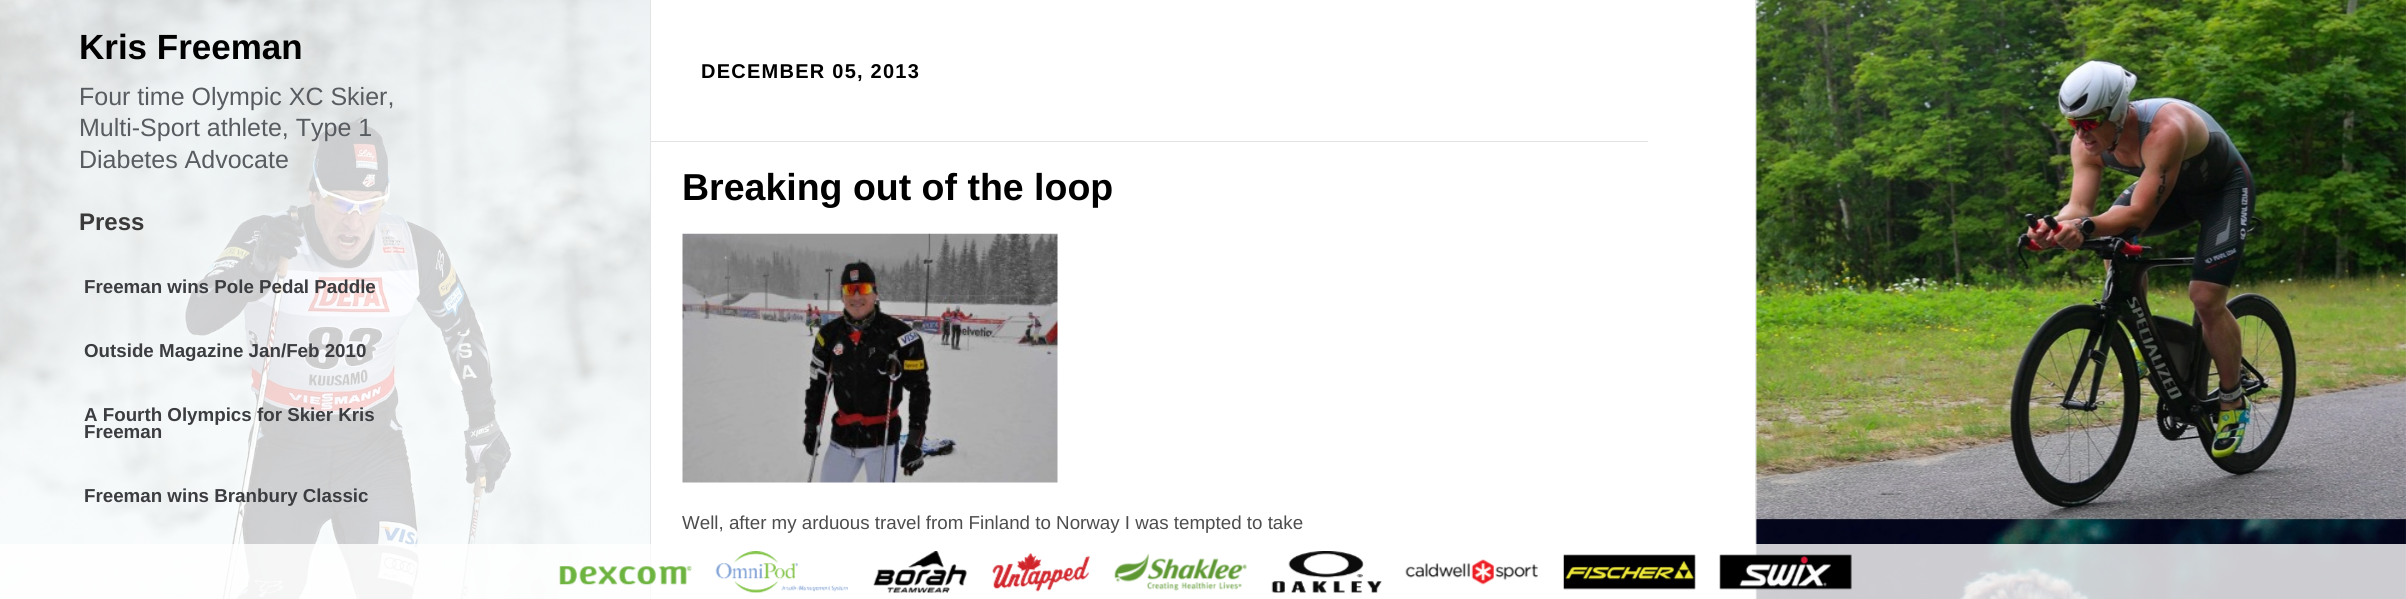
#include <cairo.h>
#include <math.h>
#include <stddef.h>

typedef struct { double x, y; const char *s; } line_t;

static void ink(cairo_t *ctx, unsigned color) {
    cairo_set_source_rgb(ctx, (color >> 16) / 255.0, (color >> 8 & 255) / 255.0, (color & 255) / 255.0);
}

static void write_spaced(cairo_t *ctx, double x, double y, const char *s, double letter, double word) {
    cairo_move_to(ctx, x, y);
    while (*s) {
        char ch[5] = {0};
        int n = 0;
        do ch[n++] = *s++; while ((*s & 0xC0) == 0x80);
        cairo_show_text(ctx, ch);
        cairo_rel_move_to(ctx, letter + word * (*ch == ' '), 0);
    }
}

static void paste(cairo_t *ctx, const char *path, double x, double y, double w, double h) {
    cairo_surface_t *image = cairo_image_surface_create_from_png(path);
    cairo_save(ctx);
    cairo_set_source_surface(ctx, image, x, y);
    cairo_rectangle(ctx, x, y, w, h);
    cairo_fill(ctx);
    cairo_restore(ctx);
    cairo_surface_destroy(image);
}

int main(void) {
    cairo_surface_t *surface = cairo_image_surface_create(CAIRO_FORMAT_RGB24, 2406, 599);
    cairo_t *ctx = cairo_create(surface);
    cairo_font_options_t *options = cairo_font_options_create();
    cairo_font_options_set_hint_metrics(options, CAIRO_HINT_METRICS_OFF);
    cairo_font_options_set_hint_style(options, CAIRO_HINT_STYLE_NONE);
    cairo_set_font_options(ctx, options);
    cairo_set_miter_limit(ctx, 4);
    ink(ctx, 0xFFFFFF);
    cairo_paint(ctx);
    paste(ctx, "media/1.png", 0, 0, 650, 599);
    paste(ctx, "media/2.png", 1756, 0, 650, 599);
    ink(ctx, 0xE2E2E2);
    cairo_rectangle(ctx, 1755, 0, 1, 599);
    cairo_fill(ctx);
    cairo_select_font_face(ctx, "Liberation Sans", CAIRO_FONT_SLANT_NORMAL, CAIRO_FONT_WEIGHT_BOLD);
    cairo_set_font_size(ctx, 35);
    ink(ctx, 0x000000);
    cairo_move_to(ctx, 79, 59);
    cairo_show_text(ctx, "Kris Freeman");
    cairo_select_font_face(ctx, "Liberation Sans", CAIRO_FONT_SLANT_NORMAL, CAIRO_FONT_WEIGHT_NORMAL);
    cairo_set_font_size(ctx, 25);
    ink(ctx, 0x585C60);
    {
        static const line_t items[] = {
            {79, 105, "Four time Olympic XC Skier,"},
            {79, 136, "Multi-Sport athlete, Type 1"},
            {79, 168, "Diabetes Advocate"},
        };
        for (size_t i = 0; i < sizeof items / sizeof *items; i++) {
            cairo_move_to(ctx, items[i].x, items[i].y);
            cairo_show_text(ctx, items[i].s);
        }
    }
    cairo_select_font_face(ctx, "Liberation Sans", CAIRO_FONT_SLANT_NORMAL, CAIRO_FONT_WEIGHT_BOLD);
    cairo_set_font_size(ctx, 24);
    ink(ctx, 0x3A3A3A);
    cairo_move_to(ctx, 79, 230);
    cairo_show_text(ctx, "Press");
    cairo_set_font_size(ctx, 18.75);
    ink(ctx, 0x3B3D40);
    {
        static const line_t items[] = {
            {84, 293, "Freeman wins Pole Pedal Paddle"},
            {84, 357, "Outside Magazine Jan/Feb 2010"},
            {84, 421, "A Fourth Olympics for Skier Kris"},
            {84, 438, "Freeman"},
            {84, 502, "Freeman wins Branbury Classic"},
        };
        for (size_t i = 0; i < sizeof items / sizeof *items; i++) {
            cairo_move_to(ctx, items[i].x, items[i].y);
            cairo_show_text(ctx, items[i].s);
        }
    }
    ink(ctx, 0xE3E3E3);
    cairo_rectangle(ctx, 650, 0, 1, 599);
    cairo_fill(ctx);
    cairo_set_font_size(ctx, 20);
    ink(ctx, 0x000000);
    write_spaced(ctx, 701, 78, "DECEMBER 05, 2013", 1.25, 0);
    ink(ctx, 0xE2E2E2);
    cairo_rectangle(ctx, 651, 141, 997, 1);
    cairo_fill(ctx);
    cairo_set_font_size(ctx, 37.5);
    ink(ctx, 0x000000);
    cairo_move_to(ctx, 682, 200);
    cairo_show_text(ctx, "Breaking out of the loop");
    paste(ctx, "media/3.png", 682, 233, 376, 250);
    cairo_select_font_face(ctx, "Liberation Sans", CAIRO_FONT_SLANT_NORMAL, CAIRO_FONT_WEIGHT_NORMAL);
    cairo_set_font_size(ctx, 18.75);
    ink(ctx, 0x4D4D4D);
    cairo_move_to(ctx, 682, 529);
    cairo_show_text(ctx, "Well, after my arduous travel from Finland to Norway I was tempted to take");
    cairo_set_source_rgba(ctx, 1, 1, 1, 0.8);
    cairo_rectangle(ctx, 0, 544, 2406, 55);
    cairo_fill(ctx);
    paste(ctx, "media/4.png", 559, 566, 133, 19);
    paste(ctx, "media/5.png", 715, 551, 133, 42);
    paste(ctx, "media/6.png", 873, 551, 94, 42);
    paste(ctx, "media/7.png", 992, 553, 98, 39);
    paste(ctx, "media/8.png", 1114, 553, 133, 38);
    paste(ctx, "media/9.png", 1271, 551, 111, 42);
    paste(ctx, "media/10.png", 1405, 559, 133, 26);
    paste(ctx, "media/11.png", 1563, 554, 133, 36);
    paste(ctx, "media/12.png", 1719, 554, 133, 36);
    cairo_surface_write_to_png(surface, "image.png");
    cairo_font_options_destroy(options);
    cairo_destroy(ctx);
    cairo_surface_destroy(surface);
    return 0;
}
